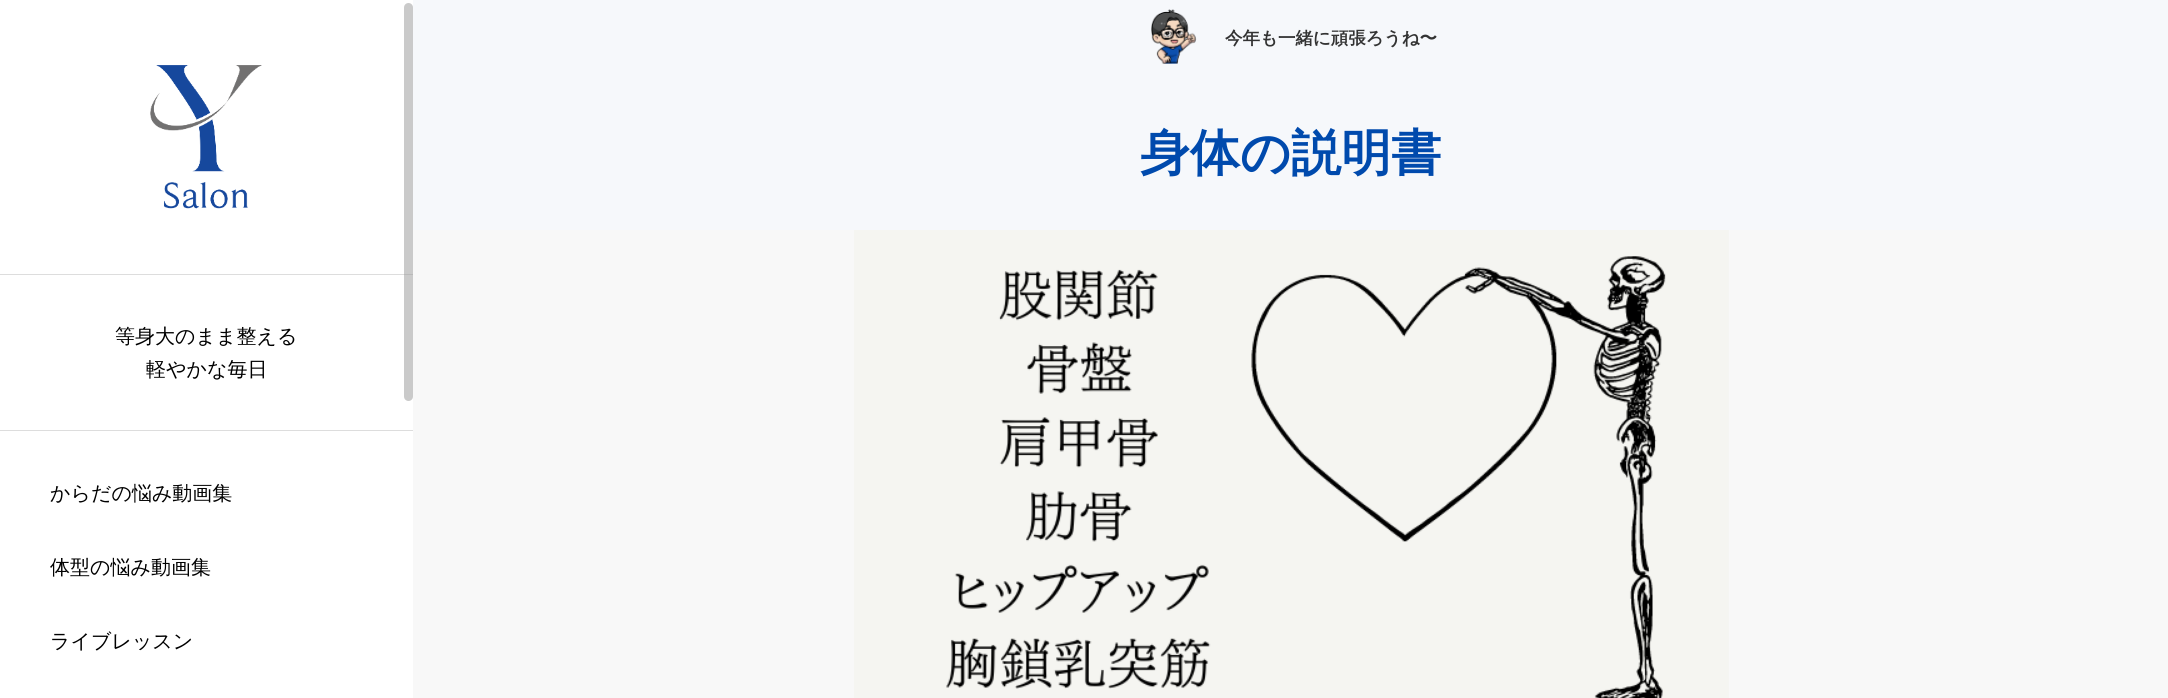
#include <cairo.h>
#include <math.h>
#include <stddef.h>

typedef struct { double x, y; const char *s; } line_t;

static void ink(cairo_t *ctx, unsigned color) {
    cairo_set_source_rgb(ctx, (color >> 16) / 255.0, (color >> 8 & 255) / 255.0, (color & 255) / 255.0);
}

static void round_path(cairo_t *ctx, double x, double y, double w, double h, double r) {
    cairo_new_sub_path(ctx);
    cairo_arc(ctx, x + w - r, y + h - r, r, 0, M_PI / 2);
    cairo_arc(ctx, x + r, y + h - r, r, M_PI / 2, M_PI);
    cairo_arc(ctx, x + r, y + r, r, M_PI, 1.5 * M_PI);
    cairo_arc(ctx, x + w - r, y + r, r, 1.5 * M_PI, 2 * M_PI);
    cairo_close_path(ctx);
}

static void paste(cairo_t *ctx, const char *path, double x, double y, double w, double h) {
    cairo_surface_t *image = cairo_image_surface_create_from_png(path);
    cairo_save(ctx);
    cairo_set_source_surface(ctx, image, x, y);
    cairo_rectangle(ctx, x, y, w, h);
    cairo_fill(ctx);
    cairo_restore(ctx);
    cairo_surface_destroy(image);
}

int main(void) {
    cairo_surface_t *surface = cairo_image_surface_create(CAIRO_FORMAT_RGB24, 2168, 698);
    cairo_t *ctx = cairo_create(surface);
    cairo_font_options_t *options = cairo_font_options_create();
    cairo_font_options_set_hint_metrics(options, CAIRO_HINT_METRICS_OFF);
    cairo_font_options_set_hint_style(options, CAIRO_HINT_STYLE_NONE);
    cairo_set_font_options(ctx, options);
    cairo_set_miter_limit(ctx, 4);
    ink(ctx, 0xFFFFFF);
    cairo_paint(ctx);
    ink(ctx, 0xF8F8F8);
    cairo_rectangle(ctx, 413, 230, 1755, 468);
    cairo_fill(ctx);
    ink(ctx, 0xF6F8FB);
    cairo_rectangle(ctx, 413, 0, 1755, 230);
    cairo_fill(ctx);
    paste(ctx, "media/1.png", 1151, 9, 46, 55);
    cairo_select_font_face(ctx, "WenQuanYi Zen Hei", CAIRO_FONT_SLANT_NORMAL, CAIRO_FONT_WEIGHT_BOLD);
    cairo_set_font_size(ctx, 17.5);
    ink(ctx, 0x333333);
    cairo_move_to(ctx, 1225, 44);
    cairo_show_text(ctx, "今年も一緒に頑張ろうね〜");
    cairo_set_font_size(ctx, 50);
    ink(ctx, 0x004AAD);
    cairo_move_to(ctx, 1140, 170);
    cairo_show_text(ctx, "身体の説明書");
    paste(ctx, "media/2.png", 854, 230, 875, 468);
    ink(ctx, 0xDDDDDD);
    cairo_rectangle(ctx, 0, 274, 413, 1);
    cairo_fill(ctx);
    cairo_set_source_rgba(ctx, 0.588, 0.588, 0.588, 0.5);
    round_path(ctx, 404, 3, 9, 398, 4.5);
    cairo_fill(ctx);
    paste(ctx, "media/3.png", 150, 65, 112, 144);
    ink(ctx, 0xDDDDDD);
    cairo_rectangle(ctx, 0, 430, 413, 1);
    cairo_fill(ctx);
    cairo_select_font_face(ctx, "WenQuanYi Zen Hei Medium", CAIRO_FONT_SLANT_NORMAL, CAIRO_FONT_WEIGHT_NORMAL);
    cairo_set_font_size(ctx, 20);
    ink(ctx, 0x000000);
    {
        static const line_t items[] = {
            {115, 343, "等身大のまま整える"},
            {146, 376, "軽やかな毎日"},
            {50, 500, "からだの悩み動画集"},
            {50, 574, "体型の悩み動画集"},
            {50, 648, "ライブレッスン"},
        };
        for (size_t i = 0; i < sizeof items / sizeof *items; i++) {
            cairo_move_to(ctx, items[i].x, items[i].y);
            cairo_show_text(ctx, items[i].s);
        }
    }
    cairo_surface_write_to_png(surface, "image.png");
    cairo_font_options_destroy(options);
    cairo_destroy(ctx);
    cairo_surface_destroy(surface);
    return 0;
}
